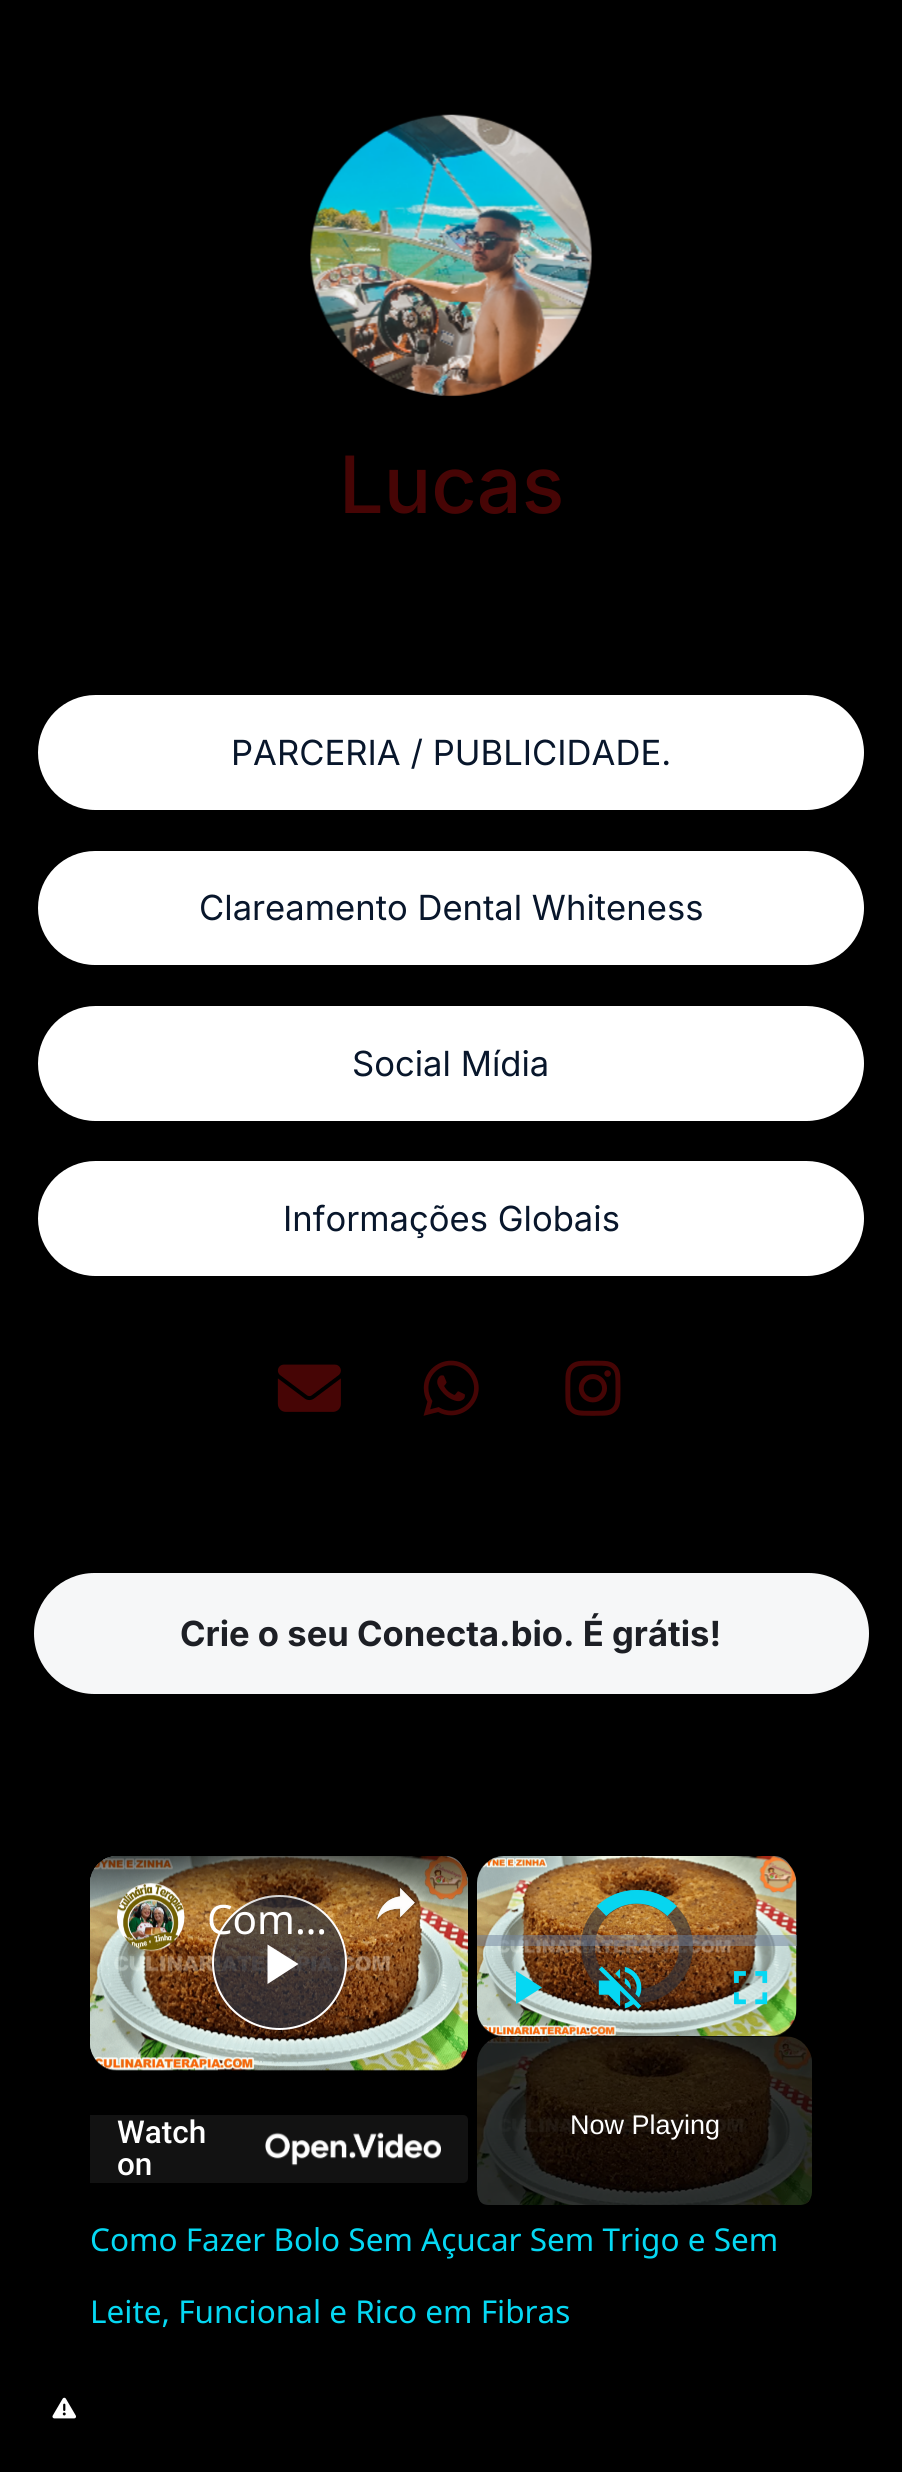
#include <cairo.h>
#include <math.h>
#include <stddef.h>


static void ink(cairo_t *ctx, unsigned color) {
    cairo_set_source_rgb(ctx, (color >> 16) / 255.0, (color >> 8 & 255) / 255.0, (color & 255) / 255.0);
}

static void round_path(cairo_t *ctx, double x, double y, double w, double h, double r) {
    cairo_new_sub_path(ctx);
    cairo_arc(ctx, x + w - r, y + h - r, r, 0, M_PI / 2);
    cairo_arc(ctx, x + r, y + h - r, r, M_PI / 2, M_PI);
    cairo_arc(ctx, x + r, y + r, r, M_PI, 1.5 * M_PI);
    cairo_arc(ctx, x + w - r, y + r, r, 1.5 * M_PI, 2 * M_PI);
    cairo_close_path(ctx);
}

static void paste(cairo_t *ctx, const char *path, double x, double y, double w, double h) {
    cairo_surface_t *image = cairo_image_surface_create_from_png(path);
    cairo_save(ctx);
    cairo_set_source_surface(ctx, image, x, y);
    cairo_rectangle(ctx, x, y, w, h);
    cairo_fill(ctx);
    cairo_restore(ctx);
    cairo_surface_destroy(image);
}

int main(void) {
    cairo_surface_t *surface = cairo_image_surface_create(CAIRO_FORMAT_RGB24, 902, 2472);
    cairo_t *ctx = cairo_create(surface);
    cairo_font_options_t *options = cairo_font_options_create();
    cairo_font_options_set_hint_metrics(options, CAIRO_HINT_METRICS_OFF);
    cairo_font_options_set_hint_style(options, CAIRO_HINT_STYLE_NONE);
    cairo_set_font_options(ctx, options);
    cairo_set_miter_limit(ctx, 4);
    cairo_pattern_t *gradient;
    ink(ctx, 0x000000);
    cairo_paint(ctx);
    paste(ctx, "media/1.png", 310, 114, 283, 283);
    cairo_select_font_face(ctx, "Inter Medium", CAIRO_FONT_SLANT_NORMAL, CAIRO_FONT_WEIGHT_NORMAL);
    cairo_set_font_size(ctx, 79);
    ink(ctx, 0x470505);
    cairo_move_to(ctx, 339, 513);
    cairo_show_text(ctx, "Lucas");
    ink(ctx, 0xFFFFFF);
    round_path(ctx, 38, 695, 826, 115, 57.5);
    cairo_fill(ctx);
    cairo_select_font_face(ctx, "Inter", CAIRO_FONT_SLANT_NORMAL, CAIRO_FONT_WEIGHT_NORMAL);
    cairo_set_font_size(ctx, 34.6);
    ink(ctx, 0x08162B);
    cairo_move_to(ctx, 231, 765);
    cairo_show_text(ctx, "PARCERIA / PUBLICIDADE.");
    ink(ctx, 0xFFFFFF);
    round_path(ctx, 38, 851, 826, 114, 57);
    cairo_fill(ctx);
    ink(ctx, 0x08162B);
    cairo_move_to(ctx, 199, 920);
    cairo_show_text(ctx, "Clareamento Dental Whiteness");
    ink(ctx, 0xFFFFFF);
    round_path(ctx, 38, 1006, 826, 115, 57.5);
    cairo_fill(ctx);
    ink(ctx, 0x08162B);
    cairo_move_to(ctx, 352, 1076);
    cairo_show_text(ctx, "Social Mídia");
    ink(ctx, 0xFFFFFF);
    round_path(ctx, 38, 1161, 826, 115, 57.5);
    cairo_fill(ctx);
    ink(ctx, 0x08162B);
    cairo_move_to(ctx, 283, 1231);
    cairo_show_text(ctx, "Informações Globais");
    paste(ctx, "media/2.png", 277, 1364, 64, 48);
    paste(ctx, "media/3.png", 423, 1360, 56, 56);
    paste(ctx, "media/4.png", 565, 1360, 56, 56);
    ink(ctx, 0xF6F7F8);
    round_path(ctx, 34, 1573, 835, 121, 60.5);
    cairo_fill(ctx);
    cairo_select_font_face(ctx, "Inter", CAIRO_FONT_SLANT_NORMAL, CAIRO_FONT_WEIGHT_BOLD);
    ink(ctx, 0x1D1F25);
    cairo_move_to(ctx, 180, 1646);
    cairo_show_text(ctx, "Crie o seu Conecta.bio. É grátis!");
    ink(ctx, 0x666666);
    cairo_new_path(ctx);
    cairo_arc(ctx, 446, 1874, 18, 0, 2 * M_PI);
    cairo_fill(ctx);
    paste(ctx, "media/5.png", 90, 1856, 378, 215);
    paste(ctx, "media/6.png", 90, 1856, 378, 215);
    cairo_set_source_rgba(ctx, 0.169, 0.2, 0.247, 0.7);
    cairo_arc(ctx, 279.5, 1962.5, 66.5, 0, 2 * M_PI);
    cairo_fill_preserve(ctx);
    ink(ctx, 0xFFFFFF);
    cairo_stroke(ctx);
    cairo_new_path(ctx);
    cairo_move_to(ctx, 267.5, 1944.5);
    cairo_line_to(ctx, 267.5, 1984);
    cairo_line_to(ctx, 298.5, 1964);
    cairo_close_path(ctx);
    cairo_fill(ctx);
    gradient = cairo_pattern_create_linear(279, 1856, 279, 2205);
    cairo_pattern_add_color_stop_rgba(gradient, 0, 0, 0, 0, 0.6);
    cairo_pattern_add_color_stop_rgba(gradient, 0.16, 0, 0, 0, 0);
    cairo_pattern_add_color_stop_rgba(gradient, 0.84, 0, 0, 0, 0);
    cairo_pattern_add_color_stop_rgba(gradient, 1, 0, 0, 0, 0.8);
    cairo_set_source(ctx, gradient);
    cairo_pattern_destroy(gradient);
    round_path(ctx, 90, 1856, 378, 349, 27);
    cairo_fill(ctx);
    paste(ctx, "media/7.png", 117, 1883, 68, 69);
    cairo_select_font_face(ctx, "Noto Sans", CAIRO_FONT_SLANT_NORMAL, CAIRO_FONT_WEIGHT_NORMAL);
    cairo_set_font_size(ctx, 40.5);
    ink(ctx, 0xFFFFFF);
    cairo_move_to(ctx, 207, 1934);
    cairo_show_text(ctx, "Com…");
    paste(ctx, "media/8.png", 375, 1884, 42, 38);
    ink(ctx, 0x121212);
    cairo_new_path(ctx);
    cairo_move_to(ctx, 90, 2115);
    cairo_line_to(ctx, 463, 2115);
    cairo_curve_to(ctx, 466, 2115, 468, 2117, 468, 2120);
    cairo_line_to(ctx, 468, 2178);
    cairo_curve_to(ctx, 468, 2181, 466, 2183, 463, 2183);
    cairo_line_to(ctx, 90, 2183);
    cairo_close_path(ctx);
    cairo_fill(ctx);
    cairo_select_font_face(ctx, "Roboto Medium", CAIRO_FONT_SLANT_NORMAL, CAIRO_FONT_WEIGHT_NORMAL);
    cairo_set_font_size(ctx, 31.5);
    ink(ctx, 0xFFFFFF);
    cairo_move_to(ctx, 117, 2143);
    cairo_show_text(ctx, "Watch");
    cairo_move_to(ctx, 117, 2175);
    cairo_show_text(ctx, "on");
    paste(ctx, "media/9.png", 265, 2132, 176, 34);
    ink(ctx, 0x666666);
    cairo_arc(ctx, 774, 1874, 18, 0, 2 * M_PI);
    cairo_fill(ctx);
    paste(ctx, "media/10.png", 477, 1856, 320, 181);
    round_path(ctx, 588, 1897, 98, 99, 49);
    cairo_set_source_rgba(ctx, 0.169, 0.2, 0.247, 0.59);
    cairo_set_line_width(ctx, 14);
    cairo_stroke(ctx);
    cairo_new_path(ctx);
    cairo_move_to(ctx, 601.5, 1911);
    cairo_curve_to(ctx, 621, 1892, 652.5, 1892, 672, 1911);
    cairo_set_source_rgba(ctx, 0.02, 0.847, 0.953, 0.85);
    cairo_set_line_width(ctx, 13.5);
    cairo_stroke(ctx);
    cairo_new_path(ctx);
    cairo_move_to(ctx, 601.5, 1911);
    cairo_curve_to(ctx, 621, 1892, 652.5, 1892, 672, 1911);
    cairo_stroke(ctx);
    cairo_set_source_rgba(ctx, 0.451, 0.522, 0.624, 0.5);
    cairo_rectangle(ctx, 477, 1935, 320, 11);
    cairo_fill(ctx);
    ink(ctx, 0x05D8F3);
    cairo_new_path(ctx);
    cairo_move_to(ctx, 516, 1971);
    cairo_line_to(ctx, 516, 2004);
    cairo_line_to(ctx, 542, 1987.5);
    cairo_close_path(ctx);
    cairo_fill(ctx);
    paste(ctx, "media/11.png", 598, 1966, 44, 43);
    paste(ctx, "media/12.png", 734, 1971, 34, 34);
    cairo_save(ctx);
    round_path(ctx, 468, 1856, 344, 349, 11);
    cairo_clip(ctx);
    round_path(ctx, 477, 2036, 335, 169, 11);
    cairo_clip(ctx);
    ink(ctx, 0x000000);
    round_path(ctx, 477, 2036, 335, 180, 27);
    cairo_fill(ctx);
    cairo_restore(ctx);
    paste(ctx, "media/13.png", 477, 2036, 335, 169);
    cairo_select_font_face(ctx, "Liberation Sans", CAIRO_FONT_SLANT_NORMAL, CAIRO_FONT_WEIGHT_NORMAL);
    cairo_set_font_size(ctx, 27);
    ink(ctx, 0xFFFFFF);
    cairo_move_to(ctx, 570, 2134);
    cairo_show_text(ctx, "Now Playing");
    cairo_select_font_face(ctx, "Noto Sans", CAIRO_FONT_SLANT_NORMAL, CAIRO_FONT_WEIGHT_NORMAL);
    cairo_set_font_size(ctx, 31.5);
    ink(ctx, 0x05D8F3);
    cairo_move_to(ctx, 90, 2251);
    cairo_show_text(ctx, "Como Fazer Bolo Sem Açucar Sem Trigo e Sem");
    cairo_move_to(ctx, 90, 2323);
    cairo_show_text(ctx, "Leite, Funcional e Rico em Fibras");
    paste(ctx, "media/14.png", 52, 2397, 24, 22);
    cairo_surface_write_to_png(surface, "image.png");
    cairo_font_options_destroy(options);
    cairo_destroy(ctx);
    cairo_surface_destroy(surface);
    return 0;
}
